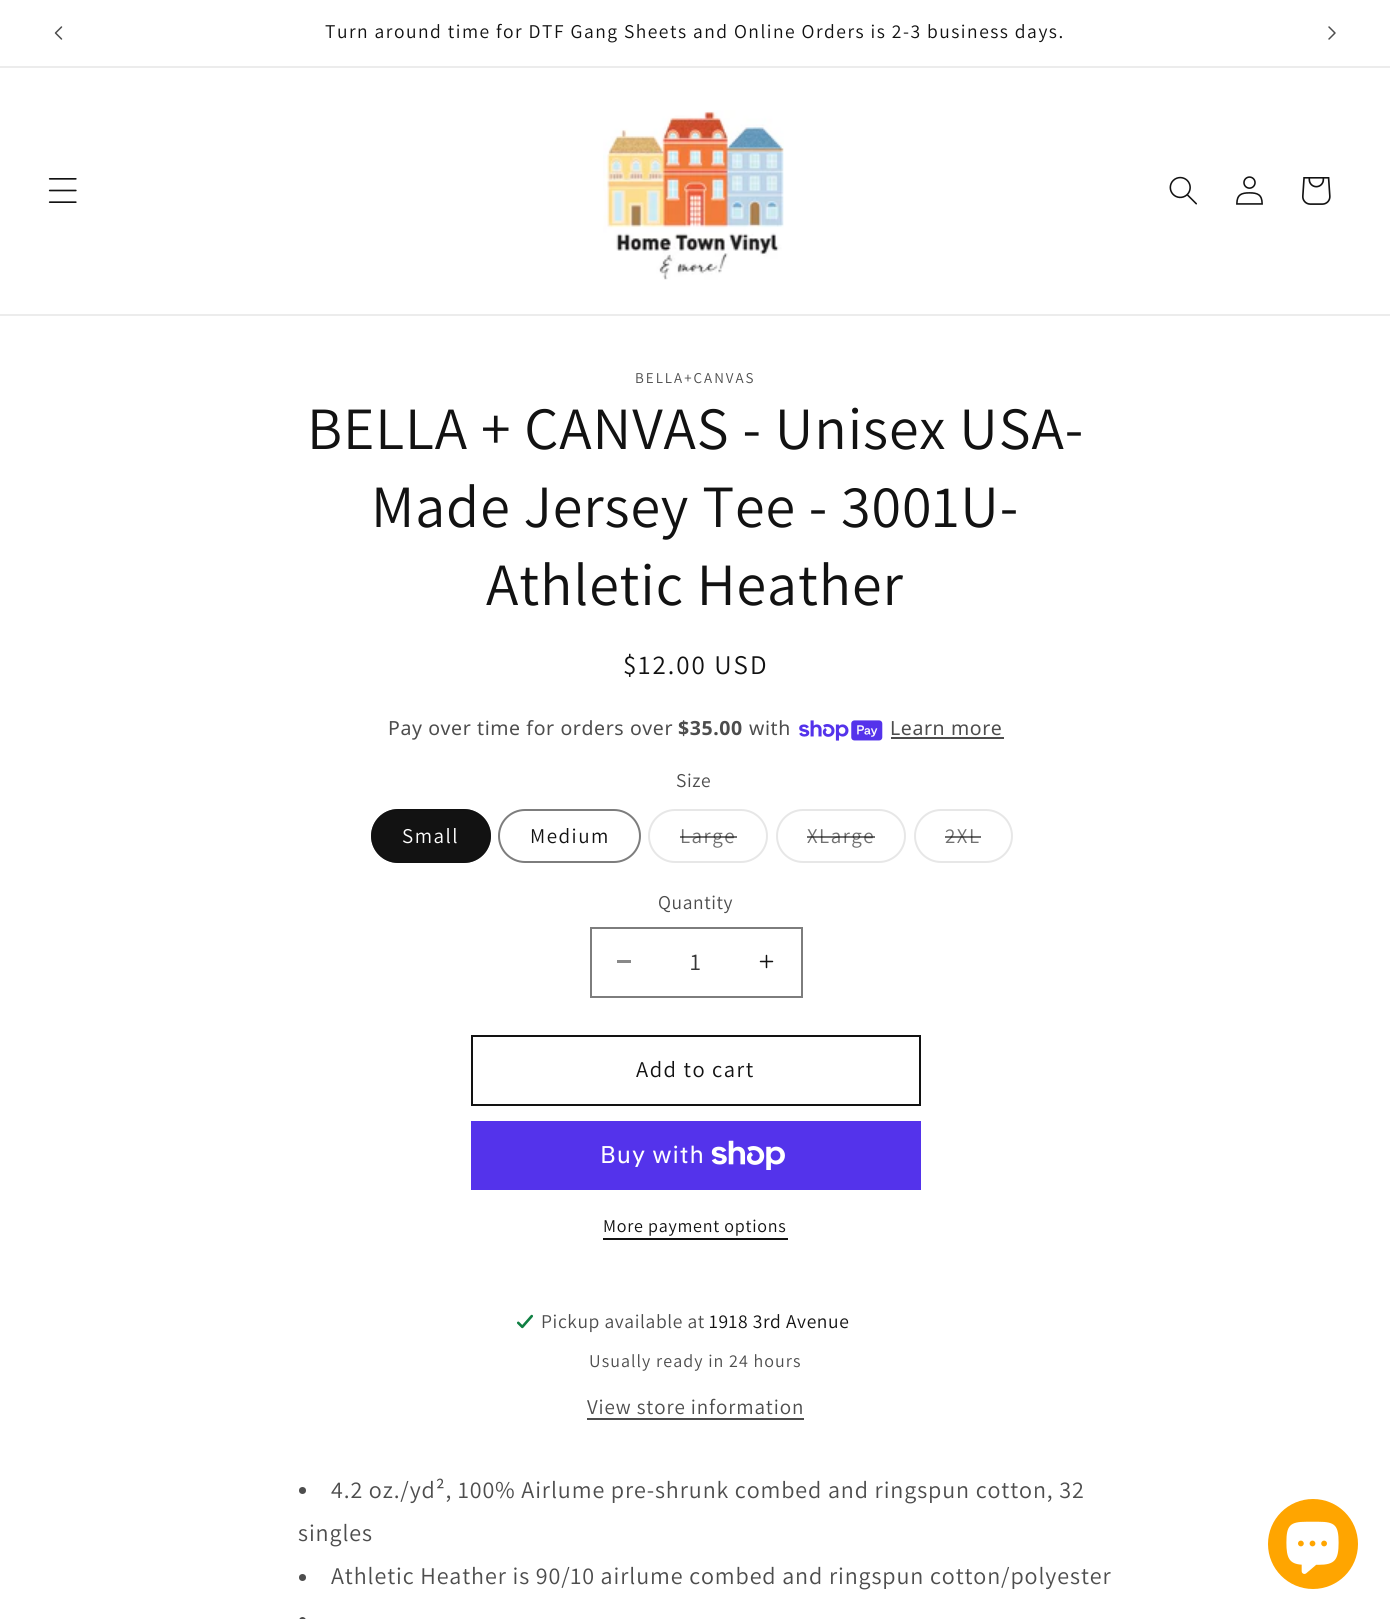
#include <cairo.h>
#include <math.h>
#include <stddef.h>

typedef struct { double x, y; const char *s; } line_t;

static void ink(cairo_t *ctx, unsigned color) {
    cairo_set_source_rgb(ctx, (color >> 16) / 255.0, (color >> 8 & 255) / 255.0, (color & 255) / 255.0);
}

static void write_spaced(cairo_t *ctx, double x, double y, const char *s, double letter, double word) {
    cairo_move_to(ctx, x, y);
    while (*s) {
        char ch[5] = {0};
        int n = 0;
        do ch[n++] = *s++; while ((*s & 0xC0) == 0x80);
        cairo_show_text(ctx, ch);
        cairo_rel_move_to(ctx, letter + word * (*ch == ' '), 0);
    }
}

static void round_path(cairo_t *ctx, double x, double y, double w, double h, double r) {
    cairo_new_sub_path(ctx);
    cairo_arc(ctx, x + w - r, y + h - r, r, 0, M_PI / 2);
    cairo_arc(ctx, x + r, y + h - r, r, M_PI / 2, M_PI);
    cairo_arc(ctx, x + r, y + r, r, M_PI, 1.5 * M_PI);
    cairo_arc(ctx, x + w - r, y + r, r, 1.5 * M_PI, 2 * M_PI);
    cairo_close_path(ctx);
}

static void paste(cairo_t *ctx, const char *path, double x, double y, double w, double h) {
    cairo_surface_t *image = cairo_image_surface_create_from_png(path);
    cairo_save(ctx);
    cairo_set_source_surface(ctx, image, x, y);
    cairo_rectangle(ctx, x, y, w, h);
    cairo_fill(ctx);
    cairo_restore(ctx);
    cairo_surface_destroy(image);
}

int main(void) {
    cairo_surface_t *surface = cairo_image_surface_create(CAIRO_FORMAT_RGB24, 1390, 1619);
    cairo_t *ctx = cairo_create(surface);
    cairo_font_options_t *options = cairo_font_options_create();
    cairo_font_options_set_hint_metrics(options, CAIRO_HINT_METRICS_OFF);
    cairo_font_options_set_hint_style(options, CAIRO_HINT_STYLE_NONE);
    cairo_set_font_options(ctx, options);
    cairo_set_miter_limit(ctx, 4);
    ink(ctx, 0xFFFFFF);
    cairo_paint(ctx);
    ink(ctx, 0xECECEC);
    cairo_rectangle(ctx, 0, 66, 1390, 2);
    cairo_fill(ctx);
    paste(ctx, "media/1.png", 54, 26, 9, 14);
    cairo_select_font_face(ctx, "Assistant", CAIRO_FONT_SLANT_NORMAL, CAIRO_FONT_WEIGHT_NORMAL);
    cairo_set_font_size(ctx, 19.5);
    ink(ctx, 0x121212);
    write_spaced(ctx, 325, 38, "Turn around time for DTF Gang Sheets and Online Orders is 2-3 business days.", 1.5, 0);
    paste(ctx, "media/2.png", 1328, 26, 8, 14);
    ink(ctx, 0xECECEC);
    cairo_rectangle(ctx, 0, 314, 1390, 2);
    cairo_fill(ctx);
    paste(ctx, "media/3.png", 48, 178, 29, 25);
    paste(ctx, "media/4.png", 603, 110, 181, 170);
    paste(ctx, "media/5.png", 1169, 176, 28, 29);
    paste(ctx, "media/6.png", 1236, 176, 27, 29);
    paste(ctx, "media/7.png", 1302, 177, 29, 28);
    cairo_set_font_size(ctx, 15);
    ink(ctx, 0x4D4D4D);
    write_spaced(ctx, 635, 383, "BELLA+CANVAS", 2, 0);
    cairo_set_font_size(ctx, 60);
    ink(ctx, 0x121212);
    {
        static const line_t items[] = {
            {307, 449, "BELLA + CANVAS - Unisex USA-"},
            {371, 527, "Made Jersey Tee - 3001U-"},
            {486, 605, "Athletic Heather"},
        };
        for (size_t i = 0; i < sizeof items / sizeof *items; i++) {
            write_spaced(ctx, items[i].x, items[i].y, items[i].s, 0.9, 0);
        }
    }
    cairo_set_font_size(ctx, 27);
    write_spaced(ctx, 623, 674, "$12.00 USD", 2, 0);
    cairo_select_font_face(ctx, "Noto Sans", CAIRO_FONT_SLANT_NORMAL, CAIRO_FONT_WEIGHT_NORMAL);
    cairo_set_font_size(ctx, 19.5);
    ink(ctx, 0x4D4D4D);
    write_spaced(ctx, 388, 735, "Pay over time for orders over", 0.6, 0);
    cairo_select_font_face(ctx, "Noto Sans", CAIRO_FONT_SLANT_NORMAL, CAIRO_FONT_WEIGHT_BOLD);
    write_spaced(ctx, 678, 735, "$35.00", 0.6, 0);
    cairo_select_font_face(ctx, "Noto Sans", CAIRO_FONT_SLANT_NORMAL, CAIRO_FONT_WEIGHT_NORMAL);
    write_spaced(ctx, 749, 735, "with", 0.6, 0);
    paste(ctx, "media/8.png", 799, 720, 84, 21);
    write_spaced(ctx, 890, 735, "Learn more", 0.6, 0);
    cairo_rectangle(ctx, 891, 737, 113, 2);
    cairo_fill(ctx);
    cairo_select_font_face(ctx, "Assistant", CAIRO_FONT_SLANT_NORMAL, CAIRO_FONT_WEIGHT_NORMAL);
    write_spaced(ctx, 676, 787, "Size", 0.6, 0);
    ink(ctx, 0x121212);
    round_path(ctx, 371, 809, 120, 54, 27);
    cairo_fill(ctx);
    round_path(ctx, 372, 810, 118, 52, 26);
    cairo_set_source_rgba(ctx, 0.071, 0.071, 0.071, 0.55);
    cairo_stroke(ctx);
    cairo_set_font_size(ctx, 21);
    ink(ctx, 0xFFFFFF);
    write_spaced(ctx, 402, 843, "Small", 1.5, 0);
    round_path(ctx, 499, 810, 141, 52, 26);
    ink(ctx, 0x7D7D7D);
    cairo_stroke(ctx);
    ink(ctx, 0x121212);
    write_spaced(ctx, 530, 843, "Medium", 1.5, 0);
    round_path(ctx, 649, 810, 118, 52, 26);
    ink(ctx, 0xE7E7E7);
    cairo_stroke(ctx);
    ink(ctx, 0x717171);
    write_spaced(ctx, 680, 843, "Large", 1.5, 0);
    cairo_set_source_rgba(ctx, 0.071, 0.071, 0.071, 0.6);
    cairo_rectangle(ctx, 680, 836, 57, 2);
    cairo_fill(ctx);
    round_path(ctx, 777, 810, 128, 52, 26);
    ink(ctx, 0xE7E7E7);
    cairo_stroke(ctx);
    ink(ctx, 0x717171);
    write_spaced(ctx, 807, 843, "XLarge", 1.5, 0);
    cairo_set_source_rgba(ctx, 0.071, 0.071, 0.071, 0.6);
    cairo_rectangle(ctx, 807, 836, 68, 2);
    cairo_fill(ctx);
    round_path(ctx, 915, 810, 97, 52, 26);
    ink(ctx, 0xE7E7E7);
    cairo_stroke(ctx);
    ink(ctx, 0x717171);
    write_spaced(ctx, 945, 843, "2XL", 1.5, 0);
    cairo_set_source_rgba(ctx, 0.071, 0.071, 0.071, 0.6);
    cairo_rectangle(ctx, 945, 836, 36, 2);
    cairo_fill(ctx);
    cairo_set_font_size(ctx, 19.5);
    ink(ctx, 0x4D4D4D);
    write_spaced(ctx, 658, 909, "Quantity", 0.6, 0);
    ink(ctx, 0x898989);
    cairo_rectangle(ctx, 617, 960, 14, 3);
    cairo_fill(ctx);
    paste(ctx, "media/9.png", 759, 954, 15, 15);
    cairo_rectangle(ctx, 591, 928, 211, 69);
    ink(ctx, 0x7D7D7D);
    cairo_stroke(ctx);
    cairo_set_font_size(ctx, 24);
    ink(ctx, 0x363636);
    cairo_move_to(ctx, 690, 970);
    cairo_show_text(ctx, "1");
    cairo_rectangle(ctx, 472, 1036, 448, 69);
    ink(ctx, 0x121212);
    cairo_stroke(ctx);
    cairo_set_font_size(ctx, 22.5);
    write_spaced(ctx, 636, 1077, "Add to cart", 1.5, 0);
    ink(ctx, 0x5433EB);
    cairo_rectangle(ctx, 471, 1121, 450, 69);
    cairo_fill(ctx);
    cairo_select_font_face(ctx, "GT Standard", CAIRO_FONT_SLANT_NORMAL, CAIRO_FONT_WEIGHT_NORMAL);
    cairo_set_font_size(ctx, 24);
    ink(ctx, 0xFFFFFF);
    write_spaced(ctx, 600, 1163, "Buy with", 0.9, 0);
    paste(ctx, "media/10.png", 711, 1140, 74, 30);
    cairo_select_font_face(ctx, "Assistant", CAIRO_FONT_SLANT_NORMAL, CAIRO_FONT_WEIGHT_NORMAL);
    cairo_set_font_size(ctx, 18);
    ink(ctx, 0x121212);
    write_spaced(ctx, 603, 1232, "More payment options", 0.75, 0);
    cairo_rectangle(ctx, 603, 1238, 185, 2);
    cairo_fill(ctx);
    paste(ctx, "media/11.png", 516, 1314, 18, 15);
    cairo_set_font_size(ctx, 19.5);
    ink(ctx, 0x4D4D4D);
    write_spaced(ctx, 541, 1328, "Pickup available at", 0.6, 0);
    ink(ctx, 0x121212);
    write_spaced(ctx, 709, 1328, "1918 3rd Avenue", 0.6, 0);
    cairo_set_font_size(ctx, 18);
    ink(ctx, 0x4D4D4D);
    write_spaced(ctx, 589, 1367, "Usually ready in 24 hours", 1.05, 0);
    cairo_set_font_size(ctx, 21);
    write_spaced(ctx, 587, 1414, "View store information", 0.9, 0);
    cairo_rectangle(ctx, 587, 1418, 217, 2);
    cairo_fill(ctx);
    cairo_arc(ctx, 302.5, 1490.5, 3.5, 0, 2 * M_PI);
    cairo_fill(ctx);
    cairo_set_font_size(ctx, 24);
    write_spaced(ctx, 331, 1498, "4.2 oz./yd², 100% Airlume pre-shrunk combed and ringspun cotton, 32", 0.9, 0);
    write_spaced(ctx, 298, 1541, "singles", 0.9, 0);
    cairo_new_path(ctx);
    cairo_arc(ctx, 302.5, 1577.5, 3.5, 0, 2 * M_PI);
    cairo_fill(ctx);
    write_spaced(ctx, 331, 1584, "Athletic Heather is 90/10 airlume combed and ringspun cotton/polyester", 0.9, 0);
    round_path(ctx, 299, 1617, 7, 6, 3.5);
    cairo_fill(ctx);
    ink(ctx, 0xFFA500);
    cairo_arc(ctx, 1313, 1544, 45, 0, 2 * M_PI);
    cairo_fill(ctx);
    paste(ctx, "media/12.png", 1286, 1521, 53, 53);
    cairo_surface_write_to_png(surface, "image.png");
    cairo_font_options_destroy(options);
    cairo_destroy(ctx);
    cairo_surface_destroy(surface);
    return 0;
}
